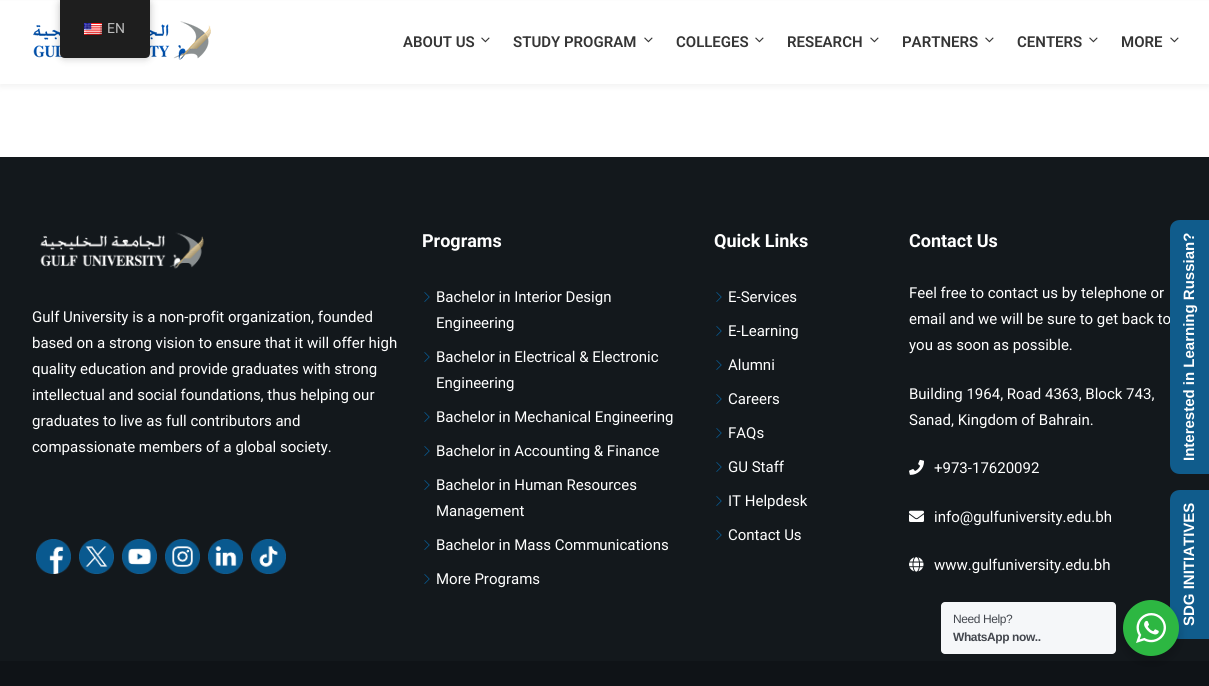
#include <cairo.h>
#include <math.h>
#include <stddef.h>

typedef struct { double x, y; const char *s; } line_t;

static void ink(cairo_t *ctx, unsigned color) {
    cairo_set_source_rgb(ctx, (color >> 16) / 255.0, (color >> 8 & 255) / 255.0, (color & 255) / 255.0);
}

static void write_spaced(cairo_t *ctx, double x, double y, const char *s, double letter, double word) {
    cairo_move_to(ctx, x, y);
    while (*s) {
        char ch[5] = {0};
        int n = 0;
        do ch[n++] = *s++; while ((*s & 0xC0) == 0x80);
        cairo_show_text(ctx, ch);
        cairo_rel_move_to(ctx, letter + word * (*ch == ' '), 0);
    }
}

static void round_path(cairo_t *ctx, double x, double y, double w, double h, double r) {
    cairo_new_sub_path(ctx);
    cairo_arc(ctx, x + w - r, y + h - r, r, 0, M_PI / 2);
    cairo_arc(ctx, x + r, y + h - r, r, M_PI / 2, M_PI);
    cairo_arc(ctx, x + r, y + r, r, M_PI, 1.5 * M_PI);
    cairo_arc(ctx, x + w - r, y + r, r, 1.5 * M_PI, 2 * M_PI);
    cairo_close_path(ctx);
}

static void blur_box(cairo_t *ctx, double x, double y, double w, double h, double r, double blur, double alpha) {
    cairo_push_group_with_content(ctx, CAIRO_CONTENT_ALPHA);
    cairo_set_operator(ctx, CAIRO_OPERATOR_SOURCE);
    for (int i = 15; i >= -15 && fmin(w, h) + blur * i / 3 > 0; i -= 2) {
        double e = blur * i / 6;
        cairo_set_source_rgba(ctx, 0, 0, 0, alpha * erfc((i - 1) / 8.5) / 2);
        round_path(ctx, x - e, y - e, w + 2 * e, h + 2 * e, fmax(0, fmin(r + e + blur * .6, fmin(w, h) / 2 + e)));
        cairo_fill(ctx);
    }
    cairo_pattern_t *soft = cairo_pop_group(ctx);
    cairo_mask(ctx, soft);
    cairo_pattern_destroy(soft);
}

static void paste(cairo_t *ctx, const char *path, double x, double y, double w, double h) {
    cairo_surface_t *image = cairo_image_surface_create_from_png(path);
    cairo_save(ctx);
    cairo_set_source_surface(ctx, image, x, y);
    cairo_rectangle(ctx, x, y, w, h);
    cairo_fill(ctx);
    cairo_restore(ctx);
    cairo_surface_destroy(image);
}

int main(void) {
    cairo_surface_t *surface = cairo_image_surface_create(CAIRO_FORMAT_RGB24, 1209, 686);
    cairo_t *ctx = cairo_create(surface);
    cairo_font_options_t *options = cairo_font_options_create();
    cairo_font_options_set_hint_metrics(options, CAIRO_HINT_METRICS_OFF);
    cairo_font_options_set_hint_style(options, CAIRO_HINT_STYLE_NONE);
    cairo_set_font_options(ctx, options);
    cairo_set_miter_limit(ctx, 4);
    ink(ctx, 0xFFFFFF);
    cairo_paint(ctx);
    ink(ctx, 0x808080);
    blur_box(ctx, 0, 3, 1209, 84, 0, 3, 0.1);
    ink(ctx, 0xFFFFFF);
    cairo_rectangle(ctx, 0, 1, 1209, 83);
    cairo_fill(ctx);
    paste(ctx, "media/2.png", 33, 21, 178, 39);
    ink(ctx, 0x000000);
    blur_box(ctx, 60, 0, 90, 58, 5, 4, 0.25);
    ink(ctx, 0x1E1E1E);
    cairo_new_path(ctx);
    cairo_move_to(ctx, 60, 0);
    cairo_line_to(ctx, 150, 0);
    cairo_line_to(ctx, 150, 53);
    cairo_curve_to(ctx, 150, 56, 148, 58, 145, 58);
    cairo_line_to(ctx, 65, 58);
    cairo_curve_to(ctx, 62, 58, 60, 56, 60, 53);
    cairo_close_path(ctx);
    cairo_fill(ctx);
    paste(ctx, "media/1.png", 84, 23, 18, 12);
    cairo_select_font_face(ctx, "Roboto", CAIRO_FONT_SLANT_NORMAL, CAIRO_FONT_WEIGHT_NORMAL);
    cairo_set_font_size(ctx, 14);
    ink(ctx, 0xBDBDBD);
    cairo_move_to(ctx, 107, 33);
    cairo_show_text(ctx, "EN");
    cairo_select_font_face(ctx, "Roboto SemiBold", CAIRO_FONT_SLANT_NORMAL, CAIRO_FONT_WEIGHT_NORMAL);
    cairo_set_font_size(ctx, 15);
    ink(ctx, 0x353535);
    cairo_move_to(ctx, 403, 47);
    cairo_show_text(ctx, "ABOUT US");
    paste(ctx, "media/3.png", 481, 37, 9, 6);
    cairo_move_to(ctx, 513, 47);
    cairo_show_text(ctx, "STUDY PROGRAM");
    paste(ctx, "media/3.png", 644, 37, 9, 6);
    cairo_move_to(ctx, 676, 47);
    cairo_show_text(ctx, "COLLEGES");
    paste(ctx, "media/3.png", 755, 37, 9, 6);
    cairo_move_to(ctx, 787, 47);
    cairo_show_text(ctx, "RESEARCH");
    paste(ctx, "media/3.png", 870, 37, 9, 6);
    cairo_move_to(ctx, 902, 47);
    cairo_show_text(ctx, "PARTNERS");
    paste(ctx, "media/3.png", 985, 37, 9, 6);
    cairo_move_to(ctx, 1017, 47);
    cairo_show_text(ctx, "CENTERS");
    paste(ctx, "media/3.png", 1089, 37, 9, 6);
    cairo_move_to(ctx, 1121, 47);
    cairo_show_text(ctx, "MORE");
    paste(ctx, "media/3.png", 1170, 37, 9, 6);
    ink(ctx, 0x13181C);
    cairo_rectangle(ctx, 0, 157, 1209, 504);
    cairo_fill(ctx);
    paste(ctx, "media/4.png", 40, 232, 164, 37);
    cairo_select_font_face(ctx, "Roboto", CAIRO_FONT_SLANT_NORMAL, CAIRO_FONT_WEIGHT_NORMAL);
    ink(ctx, 0xFFFFFF);
    {
        static const line_t items[] = {
            {32, 322, "Gulf University is a non-profit organization, founded"},
            {32, 348, "based on a strong vision to ensure that it will offer high"},
            {32, 374, "quality education and provide graduates with strong"},
            {32, 400, "intellectual and social foundations, thus helping our"},
            {32, 426, "graduates to live as full contributors and"},
            {32, 452, "compassionate members of a global society."},
        };
        for (size_t i = 0; i < sizeof items / sizeof *items; i++) {
            cairo_move_to(ctx, items[i].x, items[i].y);
            cairo_show_text(ctx, items[i].s);
        }
    }
    paste(ctx, "media/5.png", 36, 539, 35, 35);
    paste(ctx, "media/6.png", 79, 539, 35, 35);
    paste(ctx, "media/7.png", 122, 539, 35, 35);
    paste(ctx, "media/8.png", 165, 539, 35, 35);
    paste(ctx, "media/9.png", 208, 539, 35, 35);
    paste(ctx, "media/10.png", 251, 539, 35, 35);
    cairo_select_font_face(ctx, "Roboto", CAIRO_FONT_SLANT_NORMAL, CAIRO_FONT_WEIGHT_BOLD);
    cairo_set_font_size(ctx, 18);
    cairo_move_to(ctx, 422, 247);
    cairo_show_text(ctx, "Programs");
    paste(ctx, "media/11.png", 424, 292, 6, 10);
    cairo_select_font_face(ctx, "Roboto", CAIRO_FONT_SLANT_NORMAL, CAIRO_FONT_WEIGHT_NORMAL);
    cairo_set_font_size(ctx, 15);
    cairo_move_to(ctx, 436, 302);
    cairo_show_text(ctx, "Bachelor in Interior Design");
    cairo_move_to(ctx, 436, 328);
    cairo_show_text(ctx, "Engineering");
    paste(ctx, "media/11.png", 424, 352, 6, 10);
    cairo_move_to(ctx, 436, 362);
    cairo_show_text(ctx, "Bachelor in Electrical & Electronic");
    cairo_move_to(ctx, 436, 388);
    cairo_show_text(ctx, "Engineering");
    paste(ctx, "media/11.png", 424, 412, 6, 10);
    cairo_move_to(ctx, 436, 422);
    cairo_show_text(ctx, "Bachelor in Mechanical Engineering");
    paste(ctx, "media/11.png", 424, 446, 6, 10);
    cairo_move_to(ctx, 436, 456);
    cairo_show_text(ctx, "Bachelor in Accounting & Finance");
    paste(ctx, "media/11.png", 424, 480, 6, 10);
    cairo_move_to(ctx, 436, 490);
    cairo_show_text(ctx, "Bachelor in Human Resources");
    cairo_move_to(ctx, 436, 516);
    cairo_show_text(ctx, "Management");
    paste(ctx, "media/11.png", 424, 540, 6, 10);
    cairo_move_to(ctx, 436, 550);
    cairo_show_text(ctx, "Bachelor in Mass Communications");
    paste(ctx, "media/11.png", 424, 574, 6, 10);
    cairo_move_to(ctx, 436, 584);
    cairo_show_text(ctx, "More Programs");
    cairo_select_font_face(ctx, "Roboto", CAIRO_FONT_SLANT_NORMAL, CAIRO_FONT_WEIGHT_BOLD);
    cairo_set_font_size(ctx, 18);
    cairo_move_to(ctx, 714, 247);
    cairo_show_text(ctx, "Quick Links");
    paste(ctx, "media/11.png", 716, 292, 6, 10);
    cairo_select_font_face(ctx, "Roboto", CAIRO_FONT_SLANT_NORMAL, CAIRO_FONT_WEIGHT_NORMAL);
    cairo_set_font_size(ctx, 15);
    cairo_move_to(ctx, 728, 302);
    cairo_show_text(ctx, "E-Services");
    paste(ctx, "media/11.png", 716, 326, 6, 10);
    cairo_move_to(ctx, 728, 336);
    cairo_show_text(ctx, "E-Learning");
    paste(ctx, "media/11.png", 716, 360, 6, 10);
    cairo_move_to(ctx, 728, 370);
    cairo_show_text(ctx, "Alumni");
    paste(ctx, "media/11.png", 716, 394, 6, 10);
    cairo_move_to(ctx, 728, 404);
    cairo_show_text(ctx, "Careers");
    paste(ctx, "media/11.png", 716, 428, 6, 10);
    cairo_move_to(ctx, 728, 438);
    cairo_show_text(ctx, "FAQs");
    paste(ctx, "media/11.png", 716, 462, 6, 10);
    cairo_move_to(ctx, 728, 472);
    cairo_show_text(ctx, "GU Staff");
    paste(ctx, "media/11.png", 716, 496, 6, 10);
    cairo_move_to(ctx, 728, 506);
    cairo_show_text(ctx, "IT Helpdesk");
    paste(ctx, "media/11.png", 716, 530, 6, 10);
    cairo_move_to(ctx, 728, 540);
    cairo_show_text(ctx, "Contact Us");
    cairo_select_font_face(ctx, "Roboto", CAIRO_FONT_SLANT_NORMAL, CAIRO_FONT_WEIGHT_BOLD);
    cairo_set_font_size(ctx, 18);
    cairo_move_to(ctx, 909, 247);
    cairo_show_text(ctx, "Contact Us");
    cairo_select_font_face(ctx, "Roboto", CAIRO_FONT_SLANT_NORMAL, CAIRO_FONT_WEIGHT_NORMAL);
    cairo_set_font_size(ctx, 15);
    {
        static const line_t items[] = {
            {909, 298, "Feel free to contact us by telephone or"},
            {909, 324, "email and we will be sure to get back to"},
            {909, 350, "you as soon as possible."},
            {909, 399, "Building 1964, Road 4363, Block 743,"},
            {909, 425, "Sanad, Kingdom of Bahrain."},
        };
        for (size_t i = 0; i < sizeof items / sizeof *items; i++) {
            cairo_move_to(ctx, items[i].x, items[i].y);
            cairo_show_text(ctx, items[i].s);
        }
    }
    paste(ctx, "media/12.png", 909, 459, 15, 16);
    cairo_move_to(ctx, 934, 473);
    cairo_show_text(ctx, "+973-17620092");
    paste(ctx, "media/13.png", 909, 510, 15, 12);
    cairo_move_to(ctx, 934, 522);
    cairo_show_text(ctx, "info@gulfuniversity.edu.bh");
    paste(ctx, "media/14.png", 909, 557, 15, 15);
    cairo_move_to(ctx, 934, 570);
    cairo_show_text(ctx, "www.gulfuniversity.edu.bh");
    ink(ctx, 0x0F1317);
    cairo_rectangle(ctx, 0, 661, 1209, 25);
    cairo_fill(ctx);
    ink(ctx, 0x105C8C);
    cairo_new_path(ctx);
    cairo_move_to(ctx, 1170, 464);
    cairo_line_to(ctx, 1170, 230);
    cairo_curve_to(ctx, 1170, 224, 1174, 220, 1180, 220);
    cairo_line_to(ctx, 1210, 220);
    cairo_line_to(ctx, 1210, 474);
    cairo_line_to(ctx, 1180, 474);
    cairo_curve_to(ctx, 1174, 474, 1170, 470, 1170, 464);
    cairo_close_path(ctx);
    cairo_fill(ctx);
    cairo_select_font_face(ctx, "Liberation Sans", CAIRO_FONT_SLANT_NORMAL, CAIRO_FONT_WEIGHT_BOLD);
    ink(ctx, 0xFFFFFF);
    cairo_save(ctx);
    cairo_translate(ctx, 1194, 461);
    cairo_rotate(ctx, -90 * M_PI / 180);
    cairo_move_to(ctx, 0, 0);
    cairo_show_text(ctx, "Interested in Learning Russian?");
    cairo_restore(ctx);
    ink(ctx, 0x105C8C);
    cairo_new_path(ctx);
    cairo_move_to(ctx, 1170, 629);
    cairo_line_to(ctx, 1170, 500);
    cairo_curve_to(ctx, 1170, 494, 1174, 490, 1180, 490);
    cairo_line_to(ctx, 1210, 490);
    cairo_line_to(ctx, 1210, 639);
    cairo_line_to(ctx, 1180, 639);
    cairo_curve_to(ctx, 1174, 639, 1170, 635, 1170, 629);
    cairo_close_path(ctx);
    cairo_fill(ctx);
    ink(ctx, 0xFFFFFF);
    cairo_save(ctx);
    cairo_translate(ctx, 1194, 626);
    cairo_rotate(ctx, -90 * M_PI / 180);
    cairo_move_to(ctx, 0, 0);
    cairo_show_text(ctx, "SDG INITIATIVES");
    cairo_restore(ctx);
    ink(ctx, 0x000000);
    blur_box(ctx, 1121, 604, 60, 60, 30, 4, 0.14);
    ink(ctx, 0xF5F7F9);
    round_path(ctx, 941, 602, 175, 52, 4);
    cairo_fill(ctx);
    cairo_select_font_face(ctx, "Liberation Sans", CAIRO_FONT_SLANT_NORMAL, CAIRO_FONT_WEIGHT_NORMAL);
    cairo_set_font_size(ctx, 12);
    ink(ctx, 0x43474E);
    write_spaced(ctx, 953, 623, "Need Help?", -0.4, 0);
    cairo_select_font_face(ctx, "Liberation Sans", CAIRO_FONT_SLANT_NORMAL, CAIRO_FONT_WEIGHT_BOLD);
    write_spaced(ctx, 953, 641, "WhatsApp now..", -0.4, 0);
    ink(ctx, 0x2DB742);
    cairo_new_path(ctx);
    cairo_arc(ctx, 1151, 628, 28, 0, 2 * M_PI);
    cairo_fill(ctx);
    paste(ctx, "media/15.png", 1136, 613, 30, 30);
    cairo_surface_write_to_png(surface, "image.png");
    cairo_font_options_destroy(options);
    cairo_destroy(ctx);
    cairo_surface_destroy(surface);
    return 0;
}
